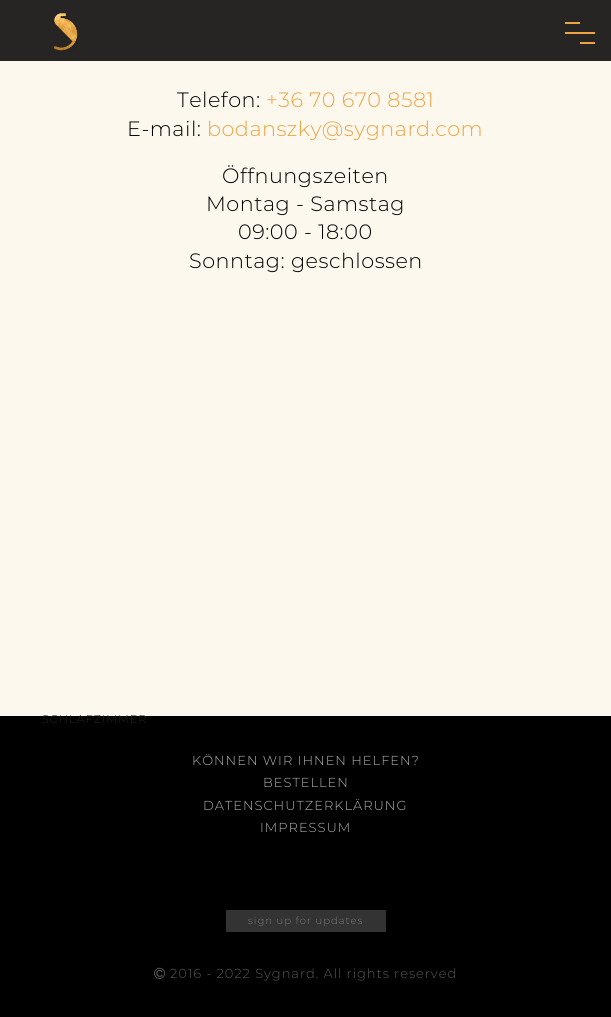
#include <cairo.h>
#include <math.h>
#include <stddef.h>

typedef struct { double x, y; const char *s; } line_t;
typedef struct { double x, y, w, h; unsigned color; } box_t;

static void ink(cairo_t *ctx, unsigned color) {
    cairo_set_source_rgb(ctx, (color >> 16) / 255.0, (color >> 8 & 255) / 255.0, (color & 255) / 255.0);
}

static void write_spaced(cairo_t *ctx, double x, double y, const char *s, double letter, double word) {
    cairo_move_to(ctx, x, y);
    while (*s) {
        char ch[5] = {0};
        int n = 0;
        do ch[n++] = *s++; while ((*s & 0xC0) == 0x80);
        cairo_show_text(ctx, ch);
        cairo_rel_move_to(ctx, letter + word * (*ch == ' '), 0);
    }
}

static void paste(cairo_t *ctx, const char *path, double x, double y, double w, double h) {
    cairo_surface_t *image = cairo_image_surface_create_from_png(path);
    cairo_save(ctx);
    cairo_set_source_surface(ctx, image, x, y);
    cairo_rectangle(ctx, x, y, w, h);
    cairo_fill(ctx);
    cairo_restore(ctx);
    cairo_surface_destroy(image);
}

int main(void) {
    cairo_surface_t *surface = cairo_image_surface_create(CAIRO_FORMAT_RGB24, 611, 1017);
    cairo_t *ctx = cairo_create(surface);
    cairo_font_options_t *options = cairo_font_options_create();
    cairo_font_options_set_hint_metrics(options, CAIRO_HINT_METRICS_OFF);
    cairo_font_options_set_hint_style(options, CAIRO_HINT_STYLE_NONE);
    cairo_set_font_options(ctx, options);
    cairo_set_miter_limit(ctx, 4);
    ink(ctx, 0xFDF8ED);
    cairo_paint(ctx);
    cairo_select_font_face(ctx, "Montserrat Light", CAIRO_FONT_SLANT_NORMAL, CAIRO_FONT_WEIGHT_NORMAL);
    cairo_set_font_size(ctx, 20.75);
    ink(ctx, 0x000000);
    write_spaced(ctx, 177, 107, "Telefon:", 0.5, 0);
    ink(ctx, 0xEBA444);
    write_spaced(ctx, 266, 107, "+36 70 670 8581", 0.5, 0);
    ink(ctx, 0x000000);
    write_spaced(ctx, 127, 136, "E-mail:", 0.5, 0);
    ink(ctx, 0xEBA444);
    write_spaced(ctx, 207, 136, "bodanszky@sygnard.com", 0.5, 0);
    ink(ctx, 0x000000);
    {
        static const line_t items[] = {
            {222, 183, "Öffnungszeiten"},
            {206, 211, "Montag - Samstag"},
            {238, 239, "09:00 - 18:00"},
            {189, 268, "Sonntag: geschlossen"},
        };
        for (size_t i = 0; i < sizeof items / sizeof *items; i++) {
            write_spaced(ctx, items[i].x, items[i].y, items[i].s, 0.5, 0);
        }
    }
    cairo_set_source_rgba(ctx, 0, 0, 0, 0.85);
    cairo_rectangle(ctx, 0, 0, 611, 61);
    cairo_fill(ctx);
    paste(ctx, "media/1.png", 54, 13, 24, 38);
    {
        static const box_t items[] = {
            {565, 32, 30, 2, 0xEBA444},
            {565, 22, 15, 2, 0xEBA444},
            {580, 42, 15, 2, 0xEBA444},
            {0, 716, 611, 301, 0x000000},
        };
        for (size_t i = 0; i < sizeof items / sizeof *items; i++) {
            ink(ctx, items[i].color);
            cairo_rectangle(ctx, items[i].x, items[i].y, items[i].w, items[i].h);
            cairo_fill(ctx);
        }
    }
    cairo_set_font_size(ctx, 11.25);
    ink(ctx, 0x252422);
    write_spaced(ctx, 42, 723, "SCHLAFZIMMER", 1, 0);
    cairo_set_font_size(ctx, 13);
    ink(ctx, 0xB3B3B3);
    {
        static const line_t items[] = {
            {192, 765, "KÖNNEN WIR IHNEN HELFEN?"},
            {263, 787, "BESTELLEN"},
            {203, 810, "DATENSCHUTZERKLÄRUNG"},
            {260, 832, "IMPRESSUM"},
        };
        for (size_t i = 0; i < sizeof items / sizeof *items; i++) {
            write_spaced(ctx, items[i].x, items[i].y, items[i].s, 1, 0);
        }
    }
    ink(ctx, 0x333333);
    cairo_rectangle(ctx, 226, 910, 160, 22);
    cairo_fill(ctx);
    cairo_set_font_size(ctx, 10);
    ink(ctx, 0x7A7A7A);
    write_spaced(ctx, 248, 924, "sign up for updates", 1, 0);
    paste(ctx, "media/2.png", 154, 967, 12, 12);
    cairo_set_font_size(ctx, 13);
    ink(ctx, 0x595959);
    write_spaced(ctx, 170, 978, "2016 - 2022 Sygnard. All rights reserved", 0.95, 0);
    cairo_surface_write_to_png(surface, "image.png");
    cairo_font_options_destroy(options);
    cairo_destroy(ctx);
    cairo_surface_destroy(surface);
    return 0;
}
